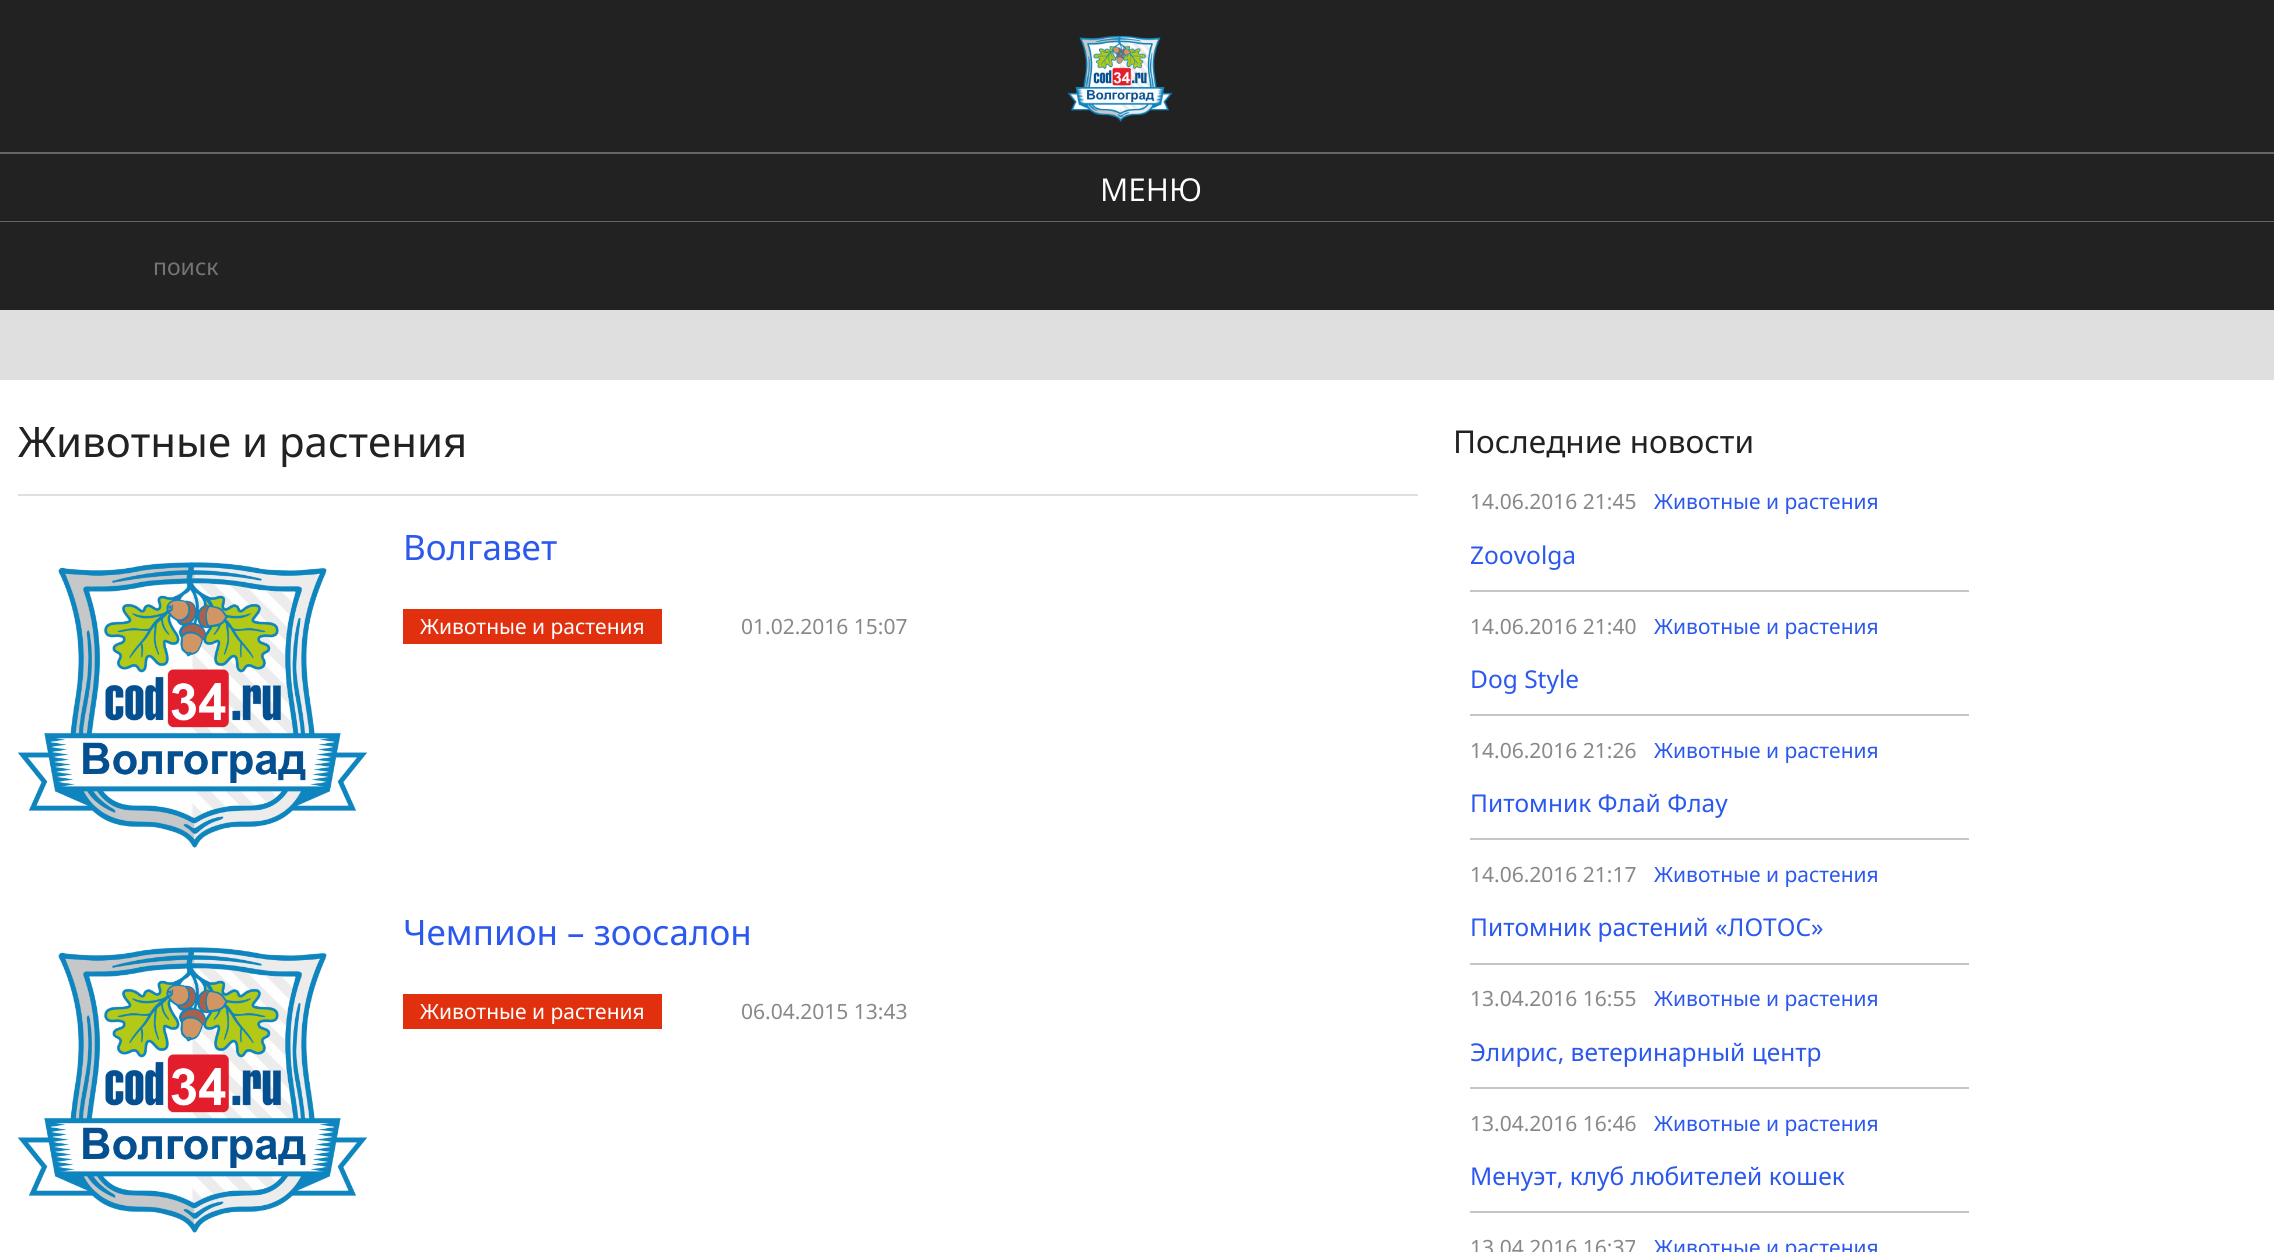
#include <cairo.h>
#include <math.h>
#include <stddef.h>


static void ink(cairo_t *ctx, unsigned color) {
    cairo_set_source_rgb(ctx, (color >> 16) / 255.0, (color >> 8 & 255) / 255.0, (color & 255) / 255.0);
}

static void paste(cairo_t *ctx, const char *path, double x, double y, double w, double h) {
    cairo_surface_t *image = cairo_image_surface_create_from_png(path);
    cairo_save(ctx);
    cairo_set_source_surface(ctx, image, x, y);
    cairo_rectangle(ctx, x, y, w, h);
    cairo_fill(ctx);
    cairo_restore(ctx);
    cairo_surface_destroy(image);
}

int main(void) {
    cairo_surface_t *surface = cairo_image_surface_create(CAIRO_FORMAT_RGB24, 2274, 1252);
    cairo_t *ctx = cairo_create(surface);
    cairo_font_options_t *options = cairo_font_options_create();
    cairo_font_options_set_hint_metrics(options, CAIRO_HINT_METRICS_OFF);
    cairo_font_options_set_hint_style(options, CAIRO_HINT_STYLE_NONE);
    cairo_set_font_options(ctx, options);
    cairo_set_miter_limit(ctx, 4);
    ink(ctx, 0xDFDFDF);
    cairo_paint(ctx);
    ink(ctx, 0x222222);
    cairo_rectangle(ctx, 0, 0, 2274, 310);
    cairo_fill(ctx);
    paste(ctx, "media/1.png", 1067, 35, 106, 87);
    ink(ctx, 0x666666);
    cairo_rectangle(ctx, 0, 152, 2274, 2);
    cairo_fill(ctx);
    cairo_rectangle(ctx, 0, 221, 2274, 1);
    cairo_fill(ctx);
    cairo_select_font_face(ctx, "Open Sans", CAIRO_FONT_SLANT_NORMAL, CAIRO_FONT_WEIGHT_NORMAL);
    cairo_set_font_size(ctx, 31.5);
    ink(ctx, 0xFFFFFF);
    cairo_move_to(ctx, 1100, 201);
    cairo_show_text(ctx, "МЕНЮ");
    cairo_select_font_face(ctx, "Noto Sans", CAIRO_FONT_SLANT_NORMAL, CAIRO_FONT_WEIGHT_NORMAL);
    cairo_set_font_size(ctx, 23);
    ink(ctx, 0x757575);
    cairo_move_to(ctx, 153, 275);
    cairo_show_text(ctx, "поиск");
    ink(ctx, 0xFFFFFF);
    cairo_rectangle(ctx, 0, 380, 2274, 872);
    cairo_fill(ctx);
    ink(ctx, 0xDFDFDF);
    cairo_rectangle(ctx, 18, 494, 1400, 2);
    cairo_fill(ctx);
    cairo_set_font_size(ctx, 42);
    ink(ctx, 0x222222);
    cairo_move_to(ctx, 18, 457);
    cairo_show_text(ctx, "Животные и растения");
    paste(ctx, "media/2.png", 17, 562, 350, 286);
    cairo_set_font_size(ctx, 35);
    ink(ctx, 0x2B58ED);
    cairo_move_to(ctx, 403, 560);
    cairo_show_text(ctx, "Волгавет");
    ink(ctx, 0xE1300E);
    cairo_rectangle(ctx, 403, 609, 259, 35);
    cairo_fill(ctx);
    cairo_set_font_size(ctx, 21);
    ink(ctx, 0xFFFFFF);
    cairo_move_to(ctx, 420, 634);
    cairo_show_text(ctx, "Животные и растения");
    ink(ctx, 0x888888);
    cairo_move_to(ctx, 741, 634);
    cairo_show_text(ctx, "01.02.2016 15:07");
    paste(ctx, "media/3.png", 17, 947, 350, 286);
    cairo_set_font_size(ctx, 35);
    ink(ctx, 0x2B58ED);
    cairo_move_to(ctx, 403, 945);
    cairo_show_text(ctx, "Чемпион – зоосалон");
    ink(ctx, 0xE1300E);
    cairo_rectangle(ctx, 403, 994, 259, 35);
    cairo_fill(ctx);
    cairo_set_font_size(ctx, 21);
    ink(ctx, 0xFFFFFF);
    cairo_move_to(ctx, 420, 1019);
    cairo_show_text(ctx, "Животные и растения");
    ink(ctx, 0x888888);
    cairo_move_to(ctx, 741, 1019);
    cairo_show_text(ctx, "06.04.2015 13:43");
    cairo_set_font_size(ctx, 31.5);
    ink(ctx, 0x222222);
    cairo_move_to(ctx, 1453, 453);
    cairo_show_text(ctx, "Последние новости");
    cairo_set_font_size(ctx, 21);
    ink(ctx, 0x888888);
    cairo_move_to(ctx, 1470, 509);
    cairo_show_text(ctx, "14.06.2016 21:45");
    ink(ctx, 0x2B58ED);
    cairo_move_to(ctx, 1654, 509);
    cairo_show_text(ctx, "Животные и растения");
    ink(ctx, 0xC5C5C5);
    cairo_rectangle(ctx, 1470, 590, 499, 2);
    cairo_fill(ctx);
    cairo_set_font_size(ctx, 24.5);
    ink(ctx, 0x2B58ED);
    cairo_move_to(ctx, 1470, 564);
    cairo_show_text(ctx, "Zoovolga");
    cairo_set_font_size(ctx, 21);
    ink(ctx, 0x888888);
    cairo_move_to(ctx, 1470, 634);
    cairo_show_text(ctx, "14.06.2016 21:40");
    ink(ctx, 0x2B58ED);
    cairo_move_to(ctx, 1654, 634);
    cairo_show_text(ctx, "Животные и растения");
    ink(ctx, 0xC5C5C5);
    cairo_rectangle(ctx, 1470, 714, 499, 2);
    cairo_fill(ctx);
    cairo_set_font_size(ctx, 24.5);
    ink(ctx, 0x2B58ED);
    cairo_move_to(ctx, 1470, 688);
    cairo_show_text(ctx, "Dog Style");
    cairo_set_font_size(ctx, 21);
    ink(ctx, 0x888888);
    cairo_move_to(ctx, 1470, 758);
    cairo_show_text(ctx, "14.06.2016 21:26");
    ink(ctx, 0x2B58ED);
    cairo_move_to(ctx, 1654, 758);
    cairo_show_text(ctx, "Животные и растения");
    ink(ctx, 0xC5C5C5);
    cairo_rectangle(ctx, 1470, 838, 499, 2);
    cairo_fill(ctx);
    cairo_set_font_size(ctx, 24.5);
    ink(ctx, 0x2B58ED);
    cairo_move_to(ctx, 1470, 812);
    cairo_show_text(ctx, "Питомник Флай Флау");
    cairo_set_font_size(ctx, 21);
    ink(ctx, 0x888888);
    cairo_move_to(ctx, 1470, 882);
    cairo_show_text(ctx, "14.06.2016 21:17");
    ink(ctx, 0x2B58ED);
    cairo_move_to(ctx, 1654, 882);
    cairo_show_text(ctx, "Животные и растения");
    ink(ctx, 0xC5C5C5);
    cairo_rectangle(ctx, 1470, 963, 499, 2);
    cairo_fill(ctx);
    cairo_set_font_size(ctx, 24.5);
    ink(ctx, 0x2B58ED);
    cairo_move_to(ctx, 1470, 936);
    cairo_show_text(ctx, "Питомник растений «ЛОТОС»");
    cairo_set_font_size(ctx, 21);
    ink(ctx, 0x888888);
    cairo_move_to(ctx, 1470, 1006);
    cairo_show_text(ctx, "13.04.2016 16:55");
    ink(ctx, 0x2B58ED);
    cairo_move_to(ctx, 1654, 1006);
    cairo_show_text(ctx, "Животные и растения");
    ink(ctx, 0xC5C5C5);
    cairo_rectangle(ctx, 1470, 1087, 499, 2);
    cairo_fill(ctx);
    cairo_set_font_size(ctx, 24.5);
    ink(ctx, 0x2B58ED);
    cairo_move_to(ctx, 1470, 1061);
    cairo_show_text(ctx, "Элирис, ветеринарный центр");
    cairo_set_font_size(ctx, 21);
    ink(ctx, 0x888888);
    cairo_move_to(ctx, 1470, 1131);
    cairo_show_text(ctx, "13.04.2016 16:46");
    ink(ctx, 0x2B58ED);
    cairo_move_to(ctx, 1654, 1131);
    cairo_show_text(ctx, "Животные и растения");
    ink(ctx, 0xC5C5C5);
    cairo_rectangle(ctx, 1470, 1211, 499, 2);
    cairo_fill(ctx);
    cairo_set_font_size(ctx, 24.5);
    ink(ctx, 0x2B58ED);
    cairo_move_to(ctx, 1470, 1185);
    cairo_show_text(ctx, "Менуэт, клуб любителей кошек");
    cairo_set_font_size(ctx, 21);
    ink(ctx, 0x888888);
    cairo_move_to(ctx, 1470, 1255);
    cairo_show_text(ctx, "13.04.2016 16:37");
    ink(ctx, 0x2B58ED);
    cairo_move_to(ctx, 1654, 1255);
    cairo_show_text(ctx, "Животные и растения");
    cairo_surface_write_to_png(surface, "image.png");
    cairo_font_options_destroy(options);
    cairo_destroy(ctx);
    cairo_surface_destroy(surface);
    return 0;
}
